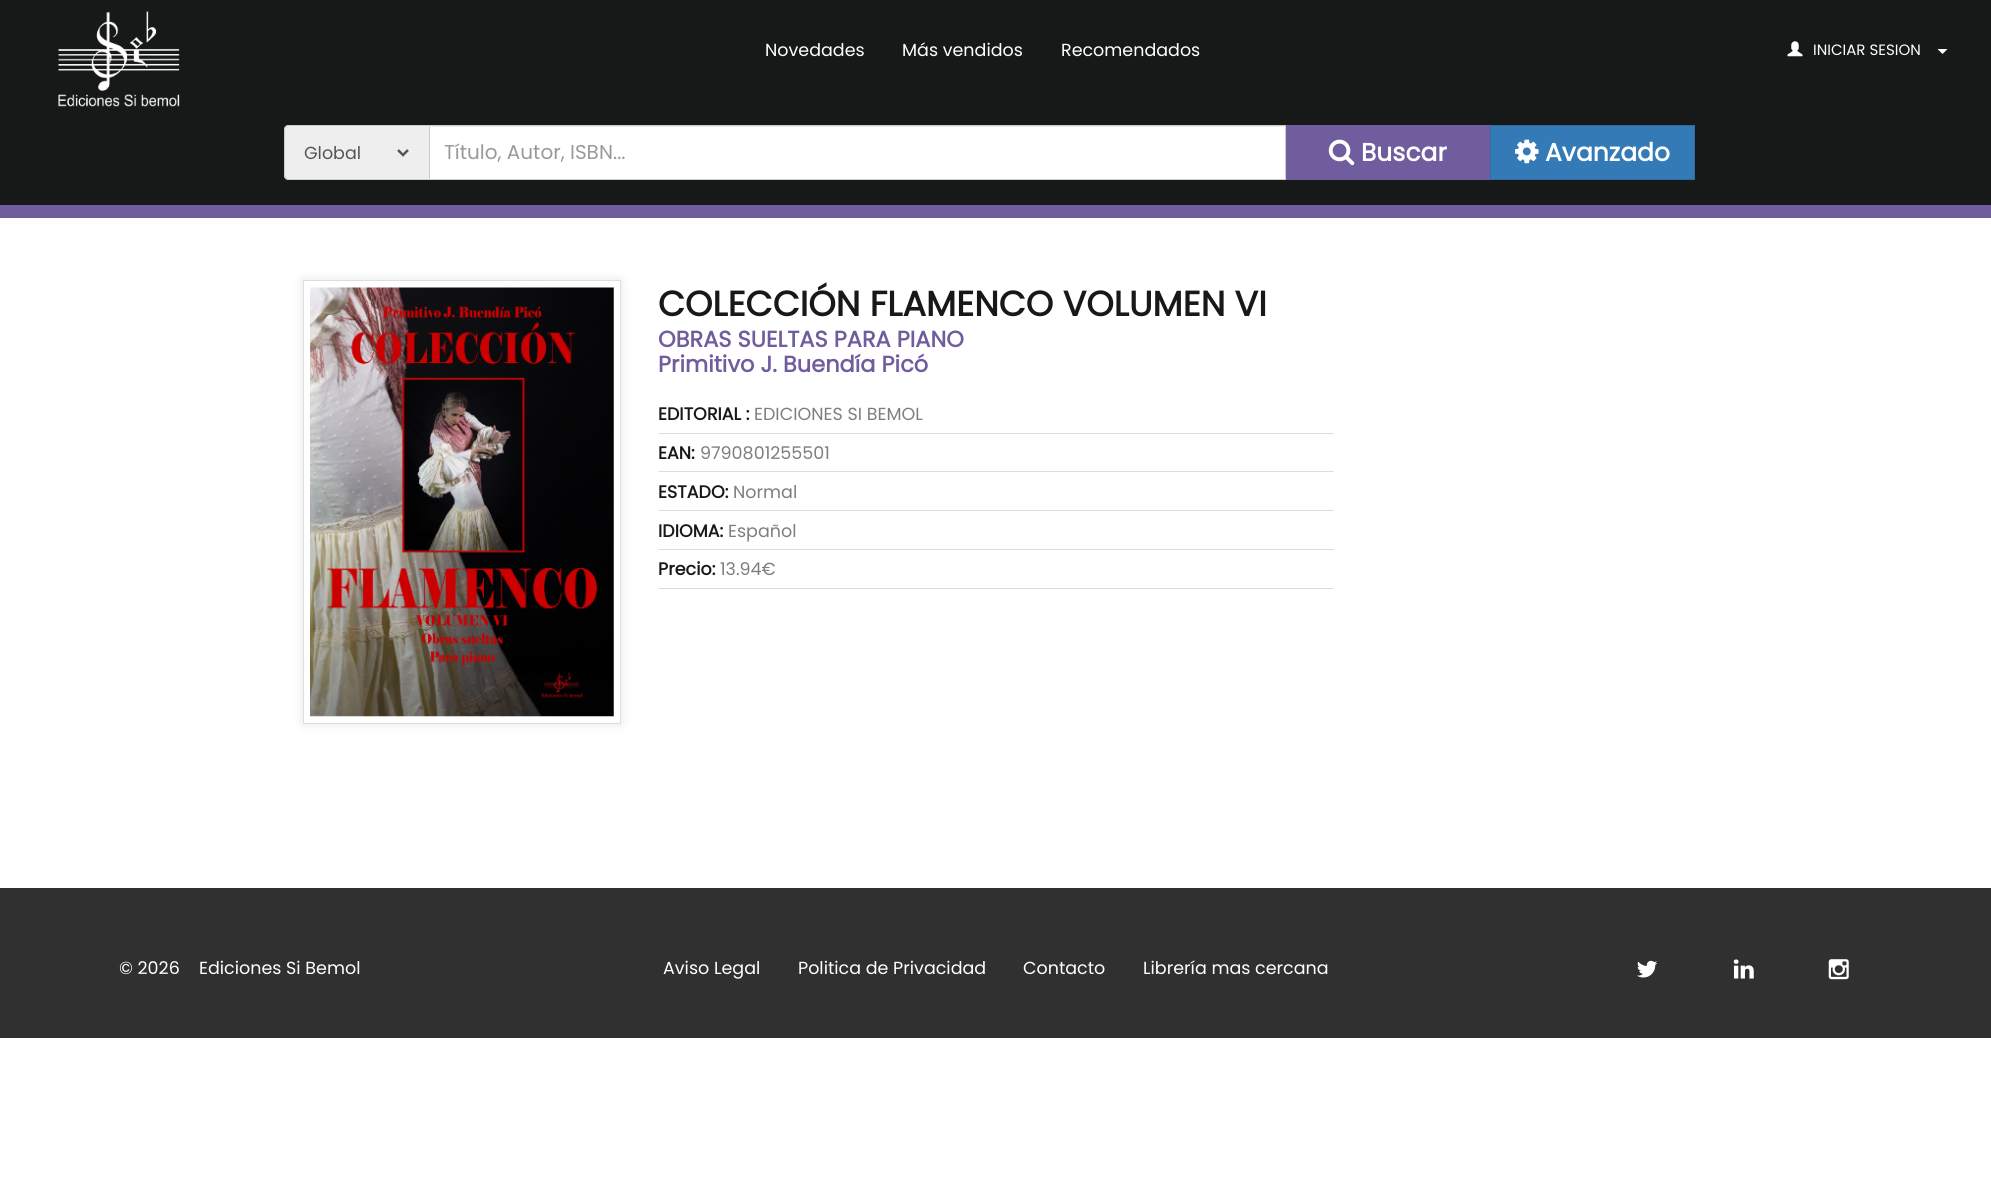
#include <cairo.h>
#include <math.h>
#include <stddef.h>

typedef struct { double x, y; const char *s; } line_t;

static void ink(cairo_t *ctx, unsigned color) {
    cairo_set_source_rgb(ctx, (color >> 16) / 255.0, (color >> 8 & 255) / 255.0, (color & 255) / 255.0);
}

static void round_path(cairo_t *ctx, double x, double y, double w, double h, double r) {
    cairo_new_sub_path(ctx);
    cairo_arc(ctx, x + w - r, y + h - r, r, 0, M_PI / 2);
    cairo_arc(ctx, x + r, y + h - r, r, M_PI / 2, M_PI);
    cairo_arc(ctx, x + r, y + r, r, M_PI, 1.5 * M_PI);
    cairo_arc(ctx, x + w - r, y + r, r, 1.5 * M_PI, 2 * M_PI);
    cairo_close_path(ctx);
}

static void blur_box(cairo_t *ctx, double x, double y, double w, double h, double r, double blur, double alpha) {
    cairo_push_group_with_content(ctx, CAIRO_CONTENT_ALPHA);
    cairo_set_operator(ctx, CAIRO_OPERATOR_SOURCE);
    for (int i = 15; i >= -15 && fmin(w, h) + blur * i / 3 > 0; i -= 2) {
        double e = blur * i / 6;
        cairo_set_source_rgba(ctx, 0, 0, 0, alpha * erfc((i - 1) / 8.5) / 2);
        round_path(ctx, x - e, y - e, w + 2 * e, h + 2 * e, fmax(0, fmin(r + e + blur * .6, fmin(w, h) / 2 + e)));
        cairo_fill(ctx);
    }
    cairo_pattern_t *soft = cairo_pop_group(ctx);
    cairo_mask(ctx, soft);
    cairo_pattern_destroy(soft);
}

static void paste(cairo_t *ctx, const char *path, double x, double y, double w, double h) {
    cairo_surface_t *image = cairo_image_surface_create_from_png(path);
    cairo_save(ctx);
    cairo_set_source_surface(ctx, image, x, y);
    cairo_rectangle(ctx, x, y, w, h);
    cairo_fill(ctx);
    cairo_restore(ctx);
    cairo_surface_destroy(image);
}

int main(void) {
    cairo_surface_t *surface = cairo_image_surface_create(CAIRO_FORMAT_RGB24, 1991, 1184);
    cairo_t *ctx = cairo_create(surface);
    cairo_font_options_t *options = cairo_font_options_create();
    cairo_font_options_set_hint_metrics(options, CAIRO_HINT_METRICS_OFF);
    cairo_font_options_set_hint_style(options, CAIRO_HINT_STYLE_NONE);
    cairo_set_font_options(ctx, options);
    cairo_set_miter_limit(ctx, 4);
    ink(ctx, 0xFFFFFF);
    cairo_paint(ctx);
    ink(ctx, 0x171919);
    cairo_rectangle(ctx, 0, 0, 1991, 205);
    cairo_fill(ctx);
    paste(ctx, "media/1.png", 58, 11, 122, 96);
    cairo_select_font_face(ctx, "Poppins", CAIRO_FONT_SLANT_NORMAL, CAIRO_FONT_WEIGHT_NORMAL);
    cairo_set_font_size(ctx, 17.5);
    ink(ctx, 0xFFFFFF);
    {
        static const line_t items[] = {
            {765, 56, "Novedades"},
            {902, 56, "Más vendidos"},
            {1061, 56, "Recomendados"},
        };
        for (size_t i = 0; i < sizeof items / sizeof *items; i++) {
            cairo_move_to(ctx, items[i].x, items[i].y);
            cairo_show_text(ctx, items[i].s);
        }
    }
    paste(ctx, "media/2.png", 1787, 41, 16, 16);
    cairo_set_font_size(ctx, 15);
    cairo_move_to(ctx, 1813, 55);
    cairo_show_text(ctx, "INICIAR SESION");
    cairo_new_path(ctx);
    cairo_move_to(ctx, 1937.5, 49);
    cairo_line_to(ctx, 1947.5, 49);
    cairo_line_to(ctx, 1942.5, 54);
    cairo_close_path(ctx);
    cairo_fill(ctx);
    ink(ctx, 0x705D9D);
    cairo_rectangle(ctx, 0, 205, 1991, 13);
    cairo_fill(ctx);
    ink(ctx, 0xEEEEEE);
    cairo_new_path(ctx);
    cairo_move_to(ctx, 289, 125);
    cairo_line_to(ctx, 429, 125);
    cairo_line_to(ctx, 429, 180);
    cairo_line_to(ctx, 289, 180);
    cairo_curve_to(ctx, 286, 180, 284, 178, 284, 175);
    cairo_line_to(ctx, 284, 130);
    cairo_curve_to(ctx, 284, 127, 286, 125, 289, 125);
    cairo_close_path(ctx);
    cairo_fill(ctx);
    ink(ctx, 0xCCCCCC);
    cairo_set_fill_rule(ctx, CAIRO_FILL_RULE_EVEN_ODD);
    cairo_new_path(ctx);
    cairo_move_to(ctx, 289, 125);
    cairo_line_to(ctx, 429, 125);
    cairo_line_to(ctx, 429, 180);
    cairo_line_to(ctx, 289, 180);
    cairo_curve_to(ctx, 286, 180, 284, 178, 284, 175);
    cairo_line_to(ctx, 284, 130);
    cairo_curve_to(ctx, 284, 127, 286, 125, 289, 125);
    cairo_close_path(ctx);
    cairo_move_to(ctx, 289, 126);
    cairo_line_to(ctx, 429, 126);
    cairo_line_to(ctx, 429, 179);
    cairo_line_to(ctx, 289, 179);
    cairo_curve_to(ctx, 287, 179, 285, 177, 285, 175);
    cairo_line_to(ctx, 285, 130);
    cairo_curve_to(ctx, 285, 128, 287, 126, 289, 126);
    cairo_close_path(ctx);
    cairo_fill(ctx);
    cairo_new_path(ctx);
    cairo_move_to(ctx, 398, 150);
    cairo_line_to(ctx, 403, 155);
    cairo_line_to(ctx, 408, 150);
    ink(ctx, 0x555555);
    cairo_set_line_width(ctx, 2.5);
    cairo_stroke(ctx);
    cairo_set_font_size(ctx, 17.5);
    cairo_move_to(ctx, 304, 159);
    cairo_show_text(ctx, "Global");
    ink(ctx, 0xFFFFFF);
    cairo_rectangle(ctx, 430, 127, 855, 52);
    cairo_fill(ctx);
    ink(ctx, 0xECECEC);
    cairo_rectangle(ctx, 430, 126, 855, 1);
    cairo_fill(ctx);
    cairo_rectangle(ctx, 429.5, 125.5, 856, 54);
    ink(ctx, 0xCCCCCC);
    cairo_set_line_width(ctx, 1);
    cairo_stroke(ctx);
    cairo_set_font_size(ctx, 20);
    ink(ctx, 0x999999);
    cairo_move_to(ctx, 444, 159);
    cairo_show_text(ctx, "Título, Autor, ISBN...");
    ink(ctx, 0x705D9D);
    cairo_rectangle(ctx, 1286, 125, 204, 55);
    cairo_fill(ctx);
    paste(ctx, "media/3.png", 1328, 139, 27, 27);
    cairo_select_font_face(ctx, "Poppins", CAIRO_FONT_SLANT_NORMAL, CAIRO_FONT_WEIGHT_BOLD);
    cairo_set_font_size(ctx, 25);
    ink(ctx, 0xFFFFFF);
    cairo_move_to(ctx, 1361, 161);
    cairo_show_text(ctx, "Buscar");
    ink(ctx, 0x337AB7);
    cairo_rectangle(ctx, 1490.5, 125.5, 204, 54);
    cairo_fill_preserve(ctx);
    ink(ctx, 0x2E6DA4);
    cairo_stroke(ctx);
    paste(ctx, "media/4.png", 1515, 139, 24, 25);
    ink(ctx, 0xFFFFFF);
    cairo_move_to(ctx, 1545, 161);
    cairo_show_text(ctx, "Avanzado");
    ink(ctx, 0xCCCCCC);
    blur_box(ctx, 303, 280, 318, 444, 0, 5, 0.5);
    ink(ctx, 0xFFFFFF);
    cairo_rectangle(ctx, 303.5, 280.5, 317, 443);
    cairo_fill_preserve(ctx);
    ink(ctx, 0xDDDDDD);
    cairo_stroke(ctx);
    paste(ctx, "media/5.png", 310, 287, 304, 430);
    cairo_set_font_size(ctx, 35);
    ink(ctx, 0x171919);
    cairo_move_to(ctx, 658, 316);
    cairo_show_text(ctx, "COLECCIÓN FLAMENCO VOLUMEN VI");
    cairo_set_font_size(ctx, 22.5);
    ink(ctx, 0x705D9D);
    cairo_move_to(ctx, 658, 347);
    cairo_show_text(ctx, "OBRAS SUELTAS PARA PIANO");
    cairo_move_to(ctx, 658, 372);
    cairo_show_text(ctx, "Primitivo J. Buendía Picó");
    ink(ctx, 0xDDDDDD);
    cairo_rectangle(ctx, 659, 433, 675, 1);
    cairo_fill(ctx);
    cairo_set_font_size(ctx, 17.5);
    ink(ctx, 0x171919);
    cairo_move_to(ctx, 658, 420);
    cairo_show_text(ctx, "EDITORIAL :");
    cairo_select_font_face(ctx, "Poppins", CAIRO_FONT_SLANT_NORMAL, CAIRO_FONT_WEIGHT_NORMAL);
    ink(ctx, 0x7E7E7E);
    cairo_move_to(ctx, 754, 420);
    cairo_show_text(ctx, "EDICIONES SI BEMOL");
    ink(ctx, 0xDDDDDD);
    cairo_rectangle(ctx, 659, 471, 675, 1);
    cairo_fill(ctx);
    cairo_select_font_face(ctx, "Poppins", CAIRO_FONT_SLANT_NORMAL, CAIRO_FONT_WEIGHT_BOLD);
    ink(ctx, 0x171919);
    cairo_move_to(ctx, 658, 459);
    cairo_show_text(ctx, "EAN:");
    cairo_select_font_face(ctx, "Poppins", CAIRO_FONT_SLANT_NORMAL, CAIRO_FONT_WEIGHT_NORMAL);
    ink(ctx, 0x7E7E7E);
    cairo_move_to(ctx, 700, 459);
    cairo_show_text(ctx, "9790801255501");
    ink(ctx, 0xDDDDDD);
    cairo_rectangle(ctx, 659, 510, 675, 1);
    cairo_fill(ctx);
    cairo_select_font_face(ctx, "Poppins", CAIRO_FONT_SLANT_NORMAL, CAIRO_FONT_WEIGHT_BOLD);
    ink(ctx, 0x171919);
    cairo_move_to(ctx, 658, 498);
    cairo_show_text(ctx, "ESTADO:");
    cairo_select_font_face(ctx, "Poppins", CAIRO_FONT_SLANT_NORMAL, CAIRO_FONT_WEIGHT_NORMAL);
    ink(ctx, 0x7E7E7E);
    cairo_move_to(ctx, 733, 498);
    cairo_show_text(ctx, "Normal");
    ink(ctx, 0xDDDDDD);
    cairo_rectangle(ctx, 659, 549, 675, 1);
    cairo_fill(ctx);
    cairo_select_font_face(ctx, "Poppins", CAIRO_FONT_SLANT_NORMAL, CAIRO_FONT_WEIGHT_BOLD);
    ink(ctx, 0x171919);
    cairo_move_to(ctx, 658, 537);
    cairo_show_text(ctx, "IDIOMA:");
    cairo_select_font_face(ctx, "Poppins", CAIRO_FONT_SLANT_NORMAL, CAIRO_FONT_WEIGHT_NORMAL);
    ink(ctx, 0x7E7E7E);
    cairo_move_to(ctx, 728, 537);
    cairo_show_text(ctx, "Español");
    ink(ctx, 0xDDDDDD);
    cairo_rectangle(ctx, 659, 588, 675, 1);
    cairo_fill(ctx);
    cairo_select_font_face(ctx, "Poppins", CAIRO_FONT_SLANT_NORMAL, CAIRO_FONT_WEIGHT_BOLD);
    ink(ctx, 0x171919);
    cairo_move_to(ctx, 658, 575);
    cairo_show_text(ctx, "Precio:");
    cairo_select_font_face(ctx, "Poppins", CAIRO_FONT_SLANT_NORMAL, CAIRO_FONT_WEIGHT_NORMAL);
    ink(ctx, 0x7E7E7E);
    cairo_move_to(ctx, 720, 575);
    cairo_show_text(ctx, "13.94€");
    ink(ctx, 0x303030);
    cairo_rectangle(ctx, 0, 888, 1991, 150);
    cairo_fill(ctx);
    ink(ctx, 0xFFFFFF);
    {
        static const line_t items[] = {
            {119, 974, "© 2026"},
            {199, 974, "Ediciones Si Bemol"},
            {663, 974, "Aviso Legal"},
            {798, 974, "Politica de Privacidad"},
            {1023, 974, "Contacto"},
            {1143, 974, "Librería mas cercana"},
        };
        for (size_t i = 0; i < sizeof items / sizeof *items; i++) {
            cairo_move_to(ctx, items[i].x, items[i].y);
            cairo_show_text(ctx, items[i].s);
        }
    }
    paste(ctx, "media/6.png", 1637, 960, 21, 18);
    paste(ctx, "media/7.png", 1733, 959, 21, 20);
    paste(ctx, "media/8.png", 1828, 959, 21, 21);
    cairo_surface_write_to_png(surface, "image.png");
    cairo_font_options_destroy(options);
    cairo_destroy(ctx);
    cairo_surface_destroy(surface);
    return 0;
}
